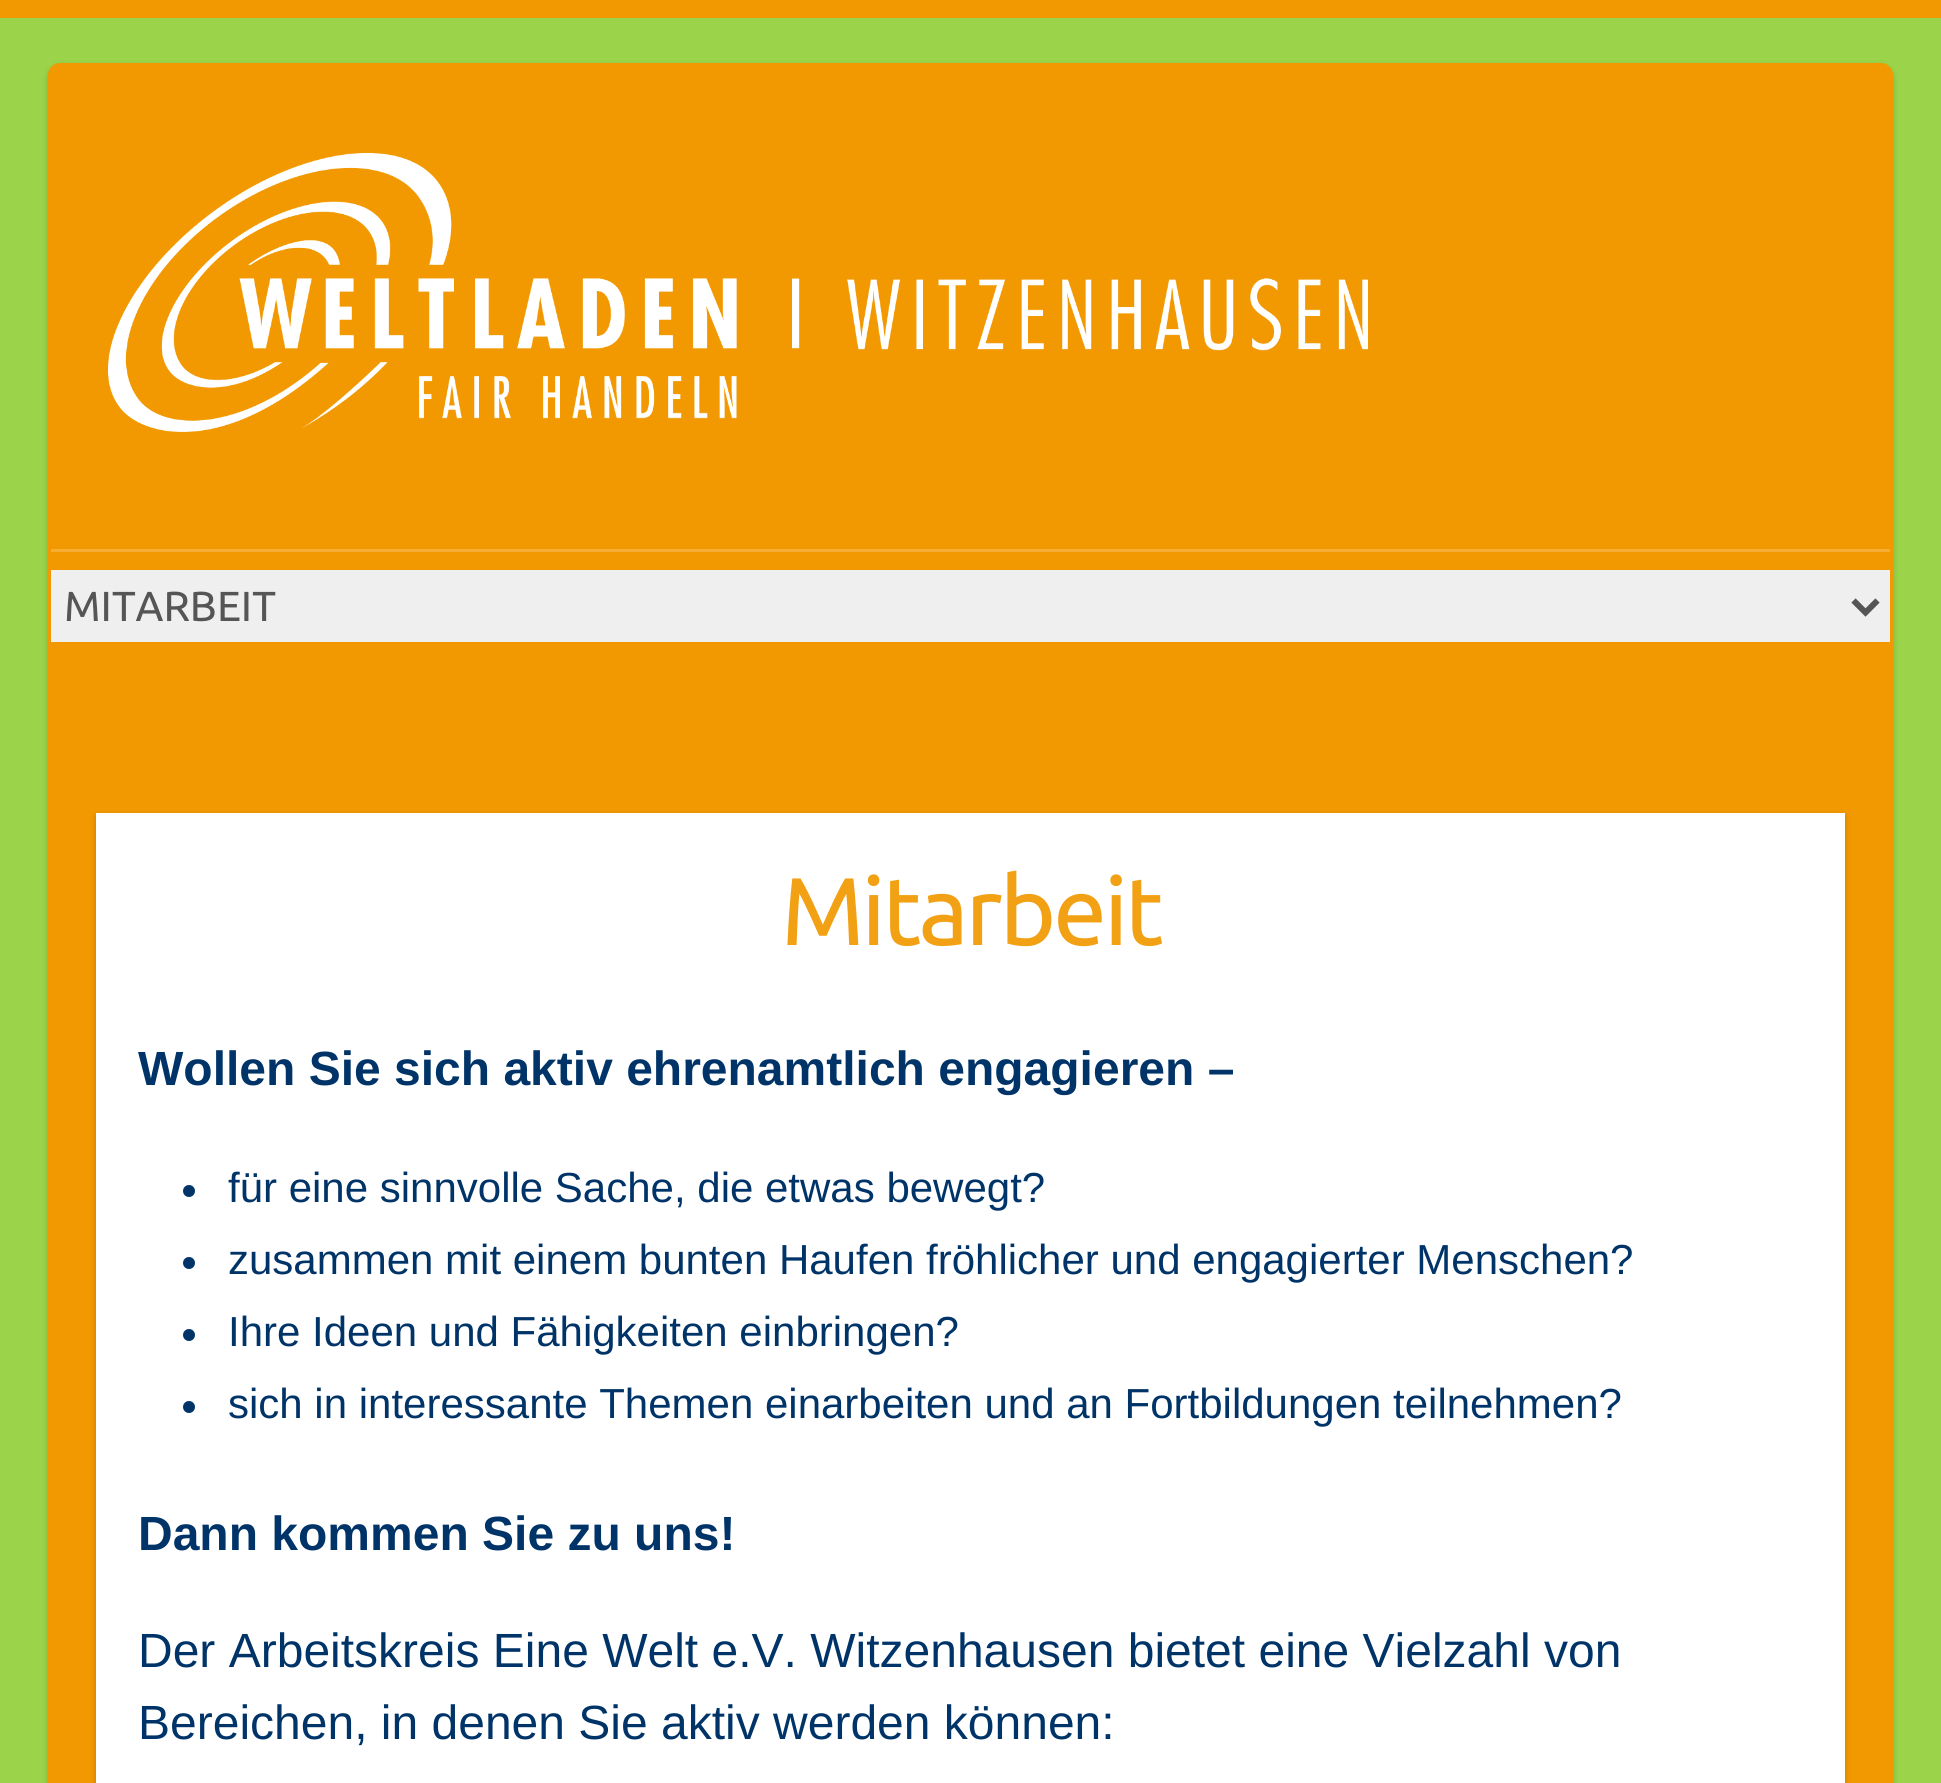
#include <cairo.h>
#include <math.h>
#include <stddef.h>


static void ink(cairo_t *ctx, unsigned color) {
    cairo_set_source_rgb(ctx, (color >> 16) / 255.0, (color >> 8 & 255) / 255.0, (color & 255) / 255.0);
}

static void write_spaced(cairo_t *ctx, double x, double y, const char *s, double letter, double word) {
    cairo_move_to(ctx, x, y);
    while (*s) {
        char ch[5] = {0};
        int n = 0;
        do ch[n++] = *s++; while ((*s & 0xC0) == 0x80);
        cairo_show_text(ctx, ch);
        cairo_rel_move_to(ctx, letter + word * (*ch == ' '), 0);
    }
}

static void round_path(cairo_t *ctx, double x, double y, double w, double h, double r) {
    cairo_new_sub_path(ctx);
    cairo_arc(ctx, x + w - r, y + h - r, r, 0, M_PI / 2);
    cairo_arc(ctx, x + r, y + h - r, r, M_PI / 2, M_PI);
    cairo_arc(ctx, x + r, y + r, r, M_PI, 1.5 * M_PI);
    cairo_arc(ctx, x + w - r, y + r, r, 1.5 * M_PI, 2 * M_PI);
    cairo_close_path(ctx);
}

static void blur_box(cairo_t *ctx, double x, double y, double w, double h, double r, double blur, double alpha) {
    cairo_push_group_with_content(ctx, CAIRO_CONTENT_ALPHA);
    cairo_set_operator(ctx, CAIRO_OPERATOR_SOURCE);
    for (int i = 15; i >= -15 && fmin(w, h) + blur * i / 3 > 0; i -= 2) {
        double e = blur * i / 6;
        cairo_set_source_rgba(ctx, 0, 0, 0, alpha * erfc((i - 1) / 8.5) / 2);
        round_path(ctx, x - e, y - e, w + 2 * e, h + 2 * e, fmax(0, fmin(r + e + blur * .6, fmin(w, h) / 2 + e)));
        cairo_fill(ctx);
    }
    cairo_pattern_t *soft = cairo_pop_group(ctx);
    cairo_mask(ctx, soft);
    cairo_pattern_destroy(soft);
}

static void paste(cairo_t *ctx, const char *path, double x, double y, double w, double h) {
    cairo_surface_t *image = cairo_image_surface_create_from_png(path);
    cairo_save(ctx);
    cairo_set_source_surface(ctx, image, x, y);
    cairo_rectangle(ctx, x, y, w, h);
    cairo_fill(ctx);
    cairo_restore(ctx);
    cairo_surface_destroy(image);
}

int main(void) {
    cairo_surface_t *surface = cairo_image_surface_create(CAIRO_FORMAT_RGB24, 1941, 1783);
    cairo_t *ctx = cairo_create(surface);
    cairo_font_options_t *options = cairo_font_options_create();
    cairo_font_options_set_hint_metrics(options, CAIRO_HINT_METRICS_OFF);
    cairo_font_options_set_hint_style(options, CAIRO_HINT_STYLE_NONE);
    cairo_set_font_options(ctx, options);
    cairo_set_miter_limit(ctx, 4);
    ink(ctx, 0x9BD34A);
    cairo_paint(ctx);
    ink(ctx, 0xF29901);
    cairo_rectangle(ctx, 0, 0, 1941, 18);
    cairo_fill(ctx);
    ink(ctx, 0x000000);
    blur_box(ctx, 48, 66, 1845, 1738, 12, 3, 0.2);
    ink(ctx, 0xF29901);
    round_path(ctx, 48, 63, 1845, 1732, 12);
    cairo_fill(ctx);
    paste(ctx, "media/1.png", 108, 153, 1260, 279);
    ink(ctx, 0xF5AD34);
    cairo_rectangle(ctx, 51, 549, 1839, 3);
    cairo_fill(ctx);
    ink(ctx, 0xEFEFEF);
    cairo_rectangle(ctx, 51, 570, 1839, 72);
    cairo_fill(ctx);
    cairo_new_path(ctx);
    cairo_move_to(ctx, 1853.5, 600.5);
    cairo_line_to(ctx, 1865.5, 612.5);
    cairo_line_to(ctx, 1877.5, 600.5);
    ink(ctx, 0x555555);
    cairo_set_line_width(ctx, 6);
    cairo_stroke(ctx);
    cairo_select_font_face(ctx, "Ubuntu", CAIRO_FONT_SLANT_NORMAL, CAIRO_FONT_WEIGHT_NORMAL);
    cairo_set_font_size(ctx, 42);
    cairo_move_to(ctx, 64, 621);
    cairo_show_text(ctx, "MITARBEIT");
    ink(ctx, 0x000000);
    blur_box(ctx, 96, 816, 1749, 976, 0, 3, 0.2);
    ink(ctx, 0xFFFFFF);
    cairo_rectangle(ctx, 96, 813, 1749, 970);
    cairo_fill(ctx);
    cairo_set_font_size(ctx, 96);
    ink(ctx, 0xF2A115);
    write_spaced(ctx, 781, 945, "Mitarbeit", -3, 0);
    cairo_select_font_face(ctx, "Liberation Sans", CAIRO_FONT_SLANT_NORMAL, CAIRO_FONT_WEIGHT_BOLD);
    cairo_set_font_size(ctx, 48);
    ink(ctx, 0x003468);
    cairo_move_to(ctx, 138, 1085);
    cairo_show_text(ctx, "Wollen Sie sich aktiv ehrenamtlich engagieren –");
    cairo_new_path(ctx);
    cairo_arc(ctx, 189, 1191, 6, 0, 2 * M_PI);
    cairo_fill(ctx);
    cairo_select_font_face(ctx, "Liberation Sans", CAIRO_FONT_SLANT_NORMAL, CAIRO_FONT_WEIGHT_NORMAL);
    cairo_set_font_size(ctx, 42);
    cairo_move_to(ctx, 228, 1202);
    cairo_show_text(ctx, "für eine sinnvolle Sache, die etwas bewegt?");
    cairo_new_path(ctx);
    cairo_arc(ctx, 189, 1263, 6, 0, 2 * M_PI);
    cairo_fill(ctx);
    cairo_move_to(ctx, 228, 1274);
    cairo_show_text(ctx, "zusammen mit einem bunten Haufen fröhlicher und engagierter Menschen?");
    cairo_new_path(ctx);
    cairo_arc(ctx, 189, 1335, 6, 0, 2 * M_PI);
    cairo_fill(ctx);
    cairo_move_to(ctx, 228, 1346);
    cairo_show_text(ctx, "Ihre Ideen und Fähigkeiten einbringen?");
    cairo_new_path(ctx);
    cairo_arc(ctx, 189, 1407, 6, 0, 2 * M_PI);
    cairo_fill(ctx);
    cairo_move_to(ctx, 228, 1418);
    cairo_show_text(ctx, "sich in interessante Themen einarbeiten und an Fortbildungen teilnehmen?");
    cairo_select_font_face(ctx, "Liberation Sans", CAIRO_FONT_SLANT_NORMAL, CAIRO_FONT_WEIGHT_BOLD);
    cairo_set_font_size(ctx, 48);
    cairo_move_to(ctx, 138, 1550);
    cairo_show_text(ctx, "Dann kommen Sie zu uns!");
    cairo_select_font_face(ctx, "Liberation Sans", CAIRO_FONT_SLANT_NORMAL, CAIRO_FONT_WEIGHT_NORMAL);
    cairo_move_to(ctx, 138, 1667);
    cairo_show_text(ctx, "Der Arbeitskreis Eine Welt e.V. Witzenhausen bietet eine Vielzahl von");
    cairo_move_to(ctx, 138, 1739);
    cairo_show_text(ctx, "Bereichen, in denen Sie aktiv werden können:");
    cairo_surface_write_to_png(surface, "image.png");
    cairo_font_options_destroy(options);
    cairo_destroy(ctx);
    cairo_surface_destroy(surface);
    return 0;
}
